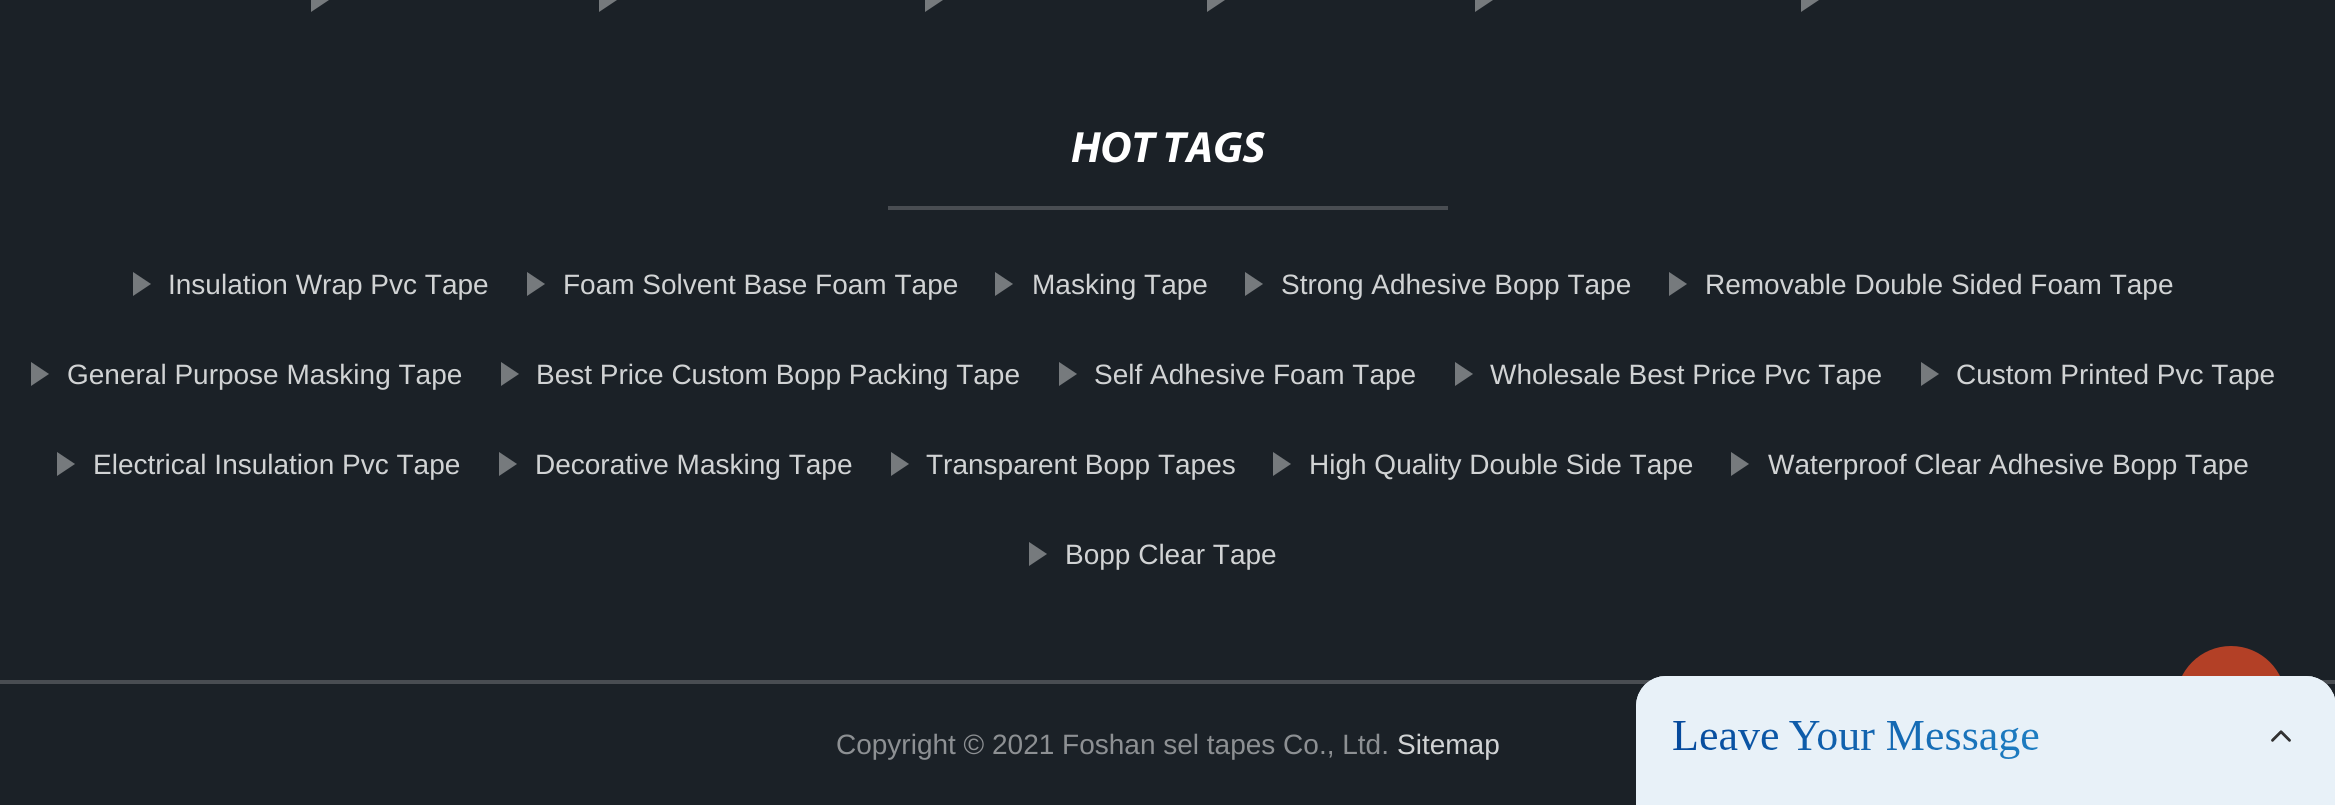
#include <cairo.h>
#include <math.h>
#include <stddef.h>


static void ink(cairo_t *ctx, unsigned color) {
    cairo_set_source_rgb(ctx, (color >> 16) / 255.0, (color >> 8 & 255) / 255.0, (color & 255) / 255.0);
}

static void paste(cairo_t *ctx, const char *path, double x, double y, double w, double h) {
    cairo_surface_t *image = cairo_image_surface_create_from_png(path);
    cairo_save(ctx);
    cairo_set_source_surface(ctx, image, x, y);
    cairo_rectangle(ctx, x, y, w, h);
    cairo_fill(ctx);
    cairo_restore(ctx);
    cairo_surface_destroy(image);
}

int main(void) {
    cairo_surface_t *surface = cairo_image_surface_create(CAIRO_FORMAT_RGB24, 2335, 805);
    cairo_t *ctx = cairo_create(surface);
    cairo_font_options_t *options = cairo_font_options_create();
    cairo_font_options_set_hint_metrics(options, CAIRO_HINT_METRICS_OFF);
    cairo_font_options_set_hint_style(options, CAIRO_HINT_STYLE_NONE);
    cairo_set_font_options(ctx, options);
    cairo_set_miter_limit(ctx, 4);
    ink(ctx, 0x1B2127);
    cairo_paint(ctx);
    ink(ctx, 0x767A7D);
    cairo_new_path(ctx);
    cairo_move_to(ctx, 311, 12);
    cairo_line_to(ctx, 311, -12);
    cairo_line_to(ctx, 329, 0);
    cairo_close_path(ctx);
    cairo_fill(ctx);
    cairo_new_path(ctx);
    cairo_move_to(ctx, 599, 12);
    cairo_line_to(ctx, 599, -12);
    cairo_line_to(ctx, 617, 0);
    cairo_close_path(ctx);
    cairo_fill(ctx);
    cairo_new_path(ctx);
    cairo_move_to(ctx, 925, 12);
    cairo_line_to(ctx, 925, -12);
    cairo_line_to(ctx, 943, 0);
    cairo_close_path(ctx);
    cairo_fill(ctx);
    cairo_new_path(ctx);
    cairo_move_to(ctx, 1207, 12);
    cairo_line_to(ctx, 1207, -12);
    cairo_line_to(ctx, 1225, 0);
    cairo_close_path(ctx);
    cairo_fill(ctx);
    cairo_new_path(ctx);
    cairo_move_to(ctx, 1475, 12);
    cairo_line_to(ctx, 1475, -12);
    cairo_line_to(ctx, 1493, 0);
    cairo_close_path(ctx);
    cairo_fill(ctx);
    cairo_new_path(ctx);
    cairo_move_to(ctx, 1801, 12);
    cairo_line_to(ctx, 1801, -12);
    cairo_line_to(ctx, 1819, 0);
    cairo_close_path(ctx);
    cairo_fill(ctx);
    cairo_select_font_face(ctx, "Myriad", CAIRO_FONT_SLANT_ITALIC, CAIRO_FONT_WEIGHT_BOLD);
    cairo_set_font_size(ctx, 44);
    ink(ctx, 0xFFFFFF);
    cairo_move_to(ctx, 1071, 162);
    cairo_show_text(ctx, "HOT TAGS");
    ink(ctx, 0x494D52);
    cairo_rectangle(ctx, 888, 206, 560, 4);
    cairo_fill(ctx);
    ink(ctx, 0x767A7D);
    cairo_new_path(ctx);
    cairo_move_to(ctx, 133, 296);
    cairo_line_to(ctx, 133, 272);
    cairo_line_to(ctx, 151, 284);
    cairo_close_path(ctx);
    cairo_fill(ctx);
    cairo_select_font_face(ctx, "Liberation Sans", CAIRO_FONT_SLANT_NORMAL, CAIRO_FONT_WEIGHT_NORMAL);
    cairo_set_font_size(ctx, 28);
    ink(ctx, 0xD1D3D4);
    cairo_move_to(ctx, 168, 294);
    cairo_show_text(ctx, "Insulation Wrap Pvc Tape");
    ink(ctx, 0x767A7D);
    cairo_new_path(ctx);
    cairo_move_to(ctx, 527, 296);
    cairo_line_to(ctx, 527, 272);
    cairo_line_to(ctx, 545, 284);
    cairo_close_path(ctx);
    cairo_fill(ctx);
    ink(ctx, 0xD1D3D4);
    cairo_move_to(ctx, 563, 294);
    cairo_show_text(ctx, "Foam Solvent Base Foam Tape");
    ink(ctx, 0x767A7D);
    cairo_new_path(ctx);
    cairo_move_to(ctx, 995, 296);
    cairo_line_to(ctx, 995, 272);
    cairo_line_to(ctx, 1013, 284);
    cairo_close_path(ctx);
    cairo_fill(ctx);
    ink(ctx, 0xD1D3D4);
    cairo_move_to(ctx, 1032, 294);
    cairo_show_text(ctx, "Masking Tape");
    ink(ctx, 0x767A7D);
    cairo_new_path(ctx);
    cairo_move_to(ctx, 1245, 296);
    cairo_line_to(ctx, 1245, 272);
    cairo_line_to(ctx, 1263, 284);
    cairo_close_path(ctx);
    cairo_fill(ctx);
    ink(ctx, 0xD1D3D4);
    cairo_move_to(ctx, 1281, 294);
    cairo_show_text(ctx, "Strong Adhesive Bopp Tape");
    ink(ctx, 0x767A7D);
    cairo_new_path(ctx);
    cairo_move_to(ctx, 1669, 296);
    cairo_line_to(ctx, 1669, 272);
    cairo_line_to(ctx, 1687, 284);
    cairo_close_path(ctx);
    cairo_fill(ctx);
    ink(ctx, 0xD1D3D4);
    cairo_move_to(ctx, 1705, 294);
    cairo_show_text(ctx, "Removable Double Sided Foam Tape");
    ink(ctx, 0x767A7D);
    cairo_new_path(ctx);
    cairo_move_to(ctx, 31, 386);
    cairo_line_to(ctx, 31, 362);
    cairo_line_to(ctx, 49, 374);
    cairo_close_path(ctx);
    cairo_fill(ctx);
    ink(ctx, 0xD1D3D4);
    cairo_move_to(ctx, 67, 384);
    cairo_show_text(ctx, "General Purpose Masking Tape");
    ink(ctx, 0x767A7D);
    cairo_new_path(ctx);
    cairo_move_to(ctx, 501, 386);
    cairo_line_to(ctx, 501, 362);
    cairo_line_to(ctx, 519, 374);
    cairo_close_path(ctx);
    cairo_fill(ctx);
    ink(ctx, 0xD1D3D4);
    cairo_move_to(ctx, 536, 384);
    cairo_show_text(ctx, "Best Price Custom Bopp Packing Tape");
    ink(ctx, 0x767A7D);
    cairo_new_path(ctx);
    cairo_move_to(ctx, 1059, 386);
    cairo_line_to(ctx, 1059, 362);
    cairo_line_to(ctx, 1077, 374);
    cairo_close_path(ctx);
    cairo_fill(ctx);
    ink(ctx, 0xD1D3D4);
    cairo_move_to(ctx, 1094, 384);
    cairo_show_text(ctx, "Self Adhesive Foam Tape");
    ink(ctx, 0x767A7D);
    cairo_new_path(ctx);
    cairo_move_to(ctx, 1455, 386);
    cairo_line_to(ctx, 1455, 362);
    cairo_line_to(ctx, 1473, 374);
    cairo_close_path(ctx);
    cairo_fill(ctx);
    ink(ctx, 0xD1D3D4);
    cairo_move_to(ctx, 1490, 384);
    cairo_show_text(ctx, "Wholesale Best Price Pvc Tape");
    ink(ctx, 0x767A7D);
    cairo_new_path(ctx);
    cairo_move_to(ctx, 1921, 386);
    cairo_line_to(ctx, 1921, 362);
    cairo_line_to(ctx, 1939, 374);
    cairo_close_path(ctx);
    cairo_fill(ctx);
    ink(ctx, 0xD1D3D4);
    cairo_move_to(ctx, 1956, 384);
    cairo_show_text(ctx, "Custom Printed Pvc Tape");
    ink(ctx, 0x767A7D);
    cairo_new_path(ctx);
    cairo_move_to(ctx, 57, 476);
    cairo_line_to(ctx, 57, 452);
    cairo_line_to(ctx, 75, 464);
    cairo_close_path(ctx);
    cairo_fill(ctx);
    ink(ctx, 0xD1D3D4);
    cairo_move_to(ctx, 93, 474);
    cairo_show_text(ctx, "Electrical Insulation Pvc Tape");
    ink(ctx, 0x767A7D);
    cairo_new_path(ctx);
    cairo_move_to(ctx, 499, 476);
    cairo_line_to(ctx, 499, 452);
    cairo_line_to(ctx, 517, 464);
    cairo_close_path(ctx);
    cairo_fill(ctx);
    ink(ctx, 0xD1D3D4);
    cairo_move_to(ctx, 535, 474);
    cairo_show_text(ctx, "Decorative Masking Tape");
    ink(ctx, 0x767A7D);
    cairo_new_path(ctx);
    cairo_move_to(ctx, 891, 476);
    cairo_line_to(ctx, 891, 452);
    cairo_line_to(ctx, 909, 464);
    cairo_close_path(ctx);
    cairo_fill(ctx);
    ink(ctx, 0xD1D3D4);
    cairo_move_to(ctx, 926, 474);
    cairo_show_text(ctx, "Transparent Bopp Tapes");
    ink(ctx, 0x767A7D);
    cairo_new_path(ctx);
    cairo_move_to(ctx, 1273, 476);
    cairo_line_to(ctx, 1273, 452);
    cairo_line_to(ctx, 1291, 464);
    cairo_close_path(ctx);
    cairo_fill(ctx);
    ink(ctx, 0xD1D3D4);
    cairo_move_to(ctx, 1309, 474);
    cairo_show_text(ctx, "High Quality Double Side Tape");
    ink(ctx, 0x767A7D);
    cairo_new_path(ctx);
    cairo_move_to(ctx, 1731, 476);
    cairo_line_to(ctx, 1731, 452);
    cairo_line_to(ctx, 1749, 464);
    cairo_close_path(ctx);
    cairo_fill(ctx);
    ink(ctx, 0xD1D3D4);
    cairo_move_to(ctx, 1768, 474);
    cairo_show_text(ctx, "Waterproof Clear Adhesive Bopp Tape");
    ink(ctx, 0x767A7D);
    cairo_new_path(ctx);
    cairo_move_to(ctx, 1029, 566);
    cairo_line_to(ctx, 1029, 542);
    cairo_line_to(ctx, 1047, 554);
    cairo_close_path(ctx);
    cairo_fill(ctx);
    ink(ctx, 0xD1D3D4);
    cairo_move_to(ctx, 1065, 564);
    cairo_show_text(ctx, "Bopp Clear Tape");
    ink(ctx, 0x494D52);
    cairo_rectangle(ctx, 0, 680, 2335, 4);
    cairo_fill(ctx);
    ink(ctx, 0x8D9093);
    cairo_move_to(ctx, 836, 754);
    cairo_show_text(ctx, "Copyright © 2021 Foshan sel tapes Co., Ltd.");
    ink(ctx, 0xD1D3D4);
    cairo_move_to(ctx, 1397, 754);
    cairo_show_text(ctx, "Sitemap");
    ink(ctx, 0xB34026);
    cairo_new_path(ctx);
    cairo_arc(ctx, 2231, 701, 55, 0, 2 * M_PI);
    cairo_fill(ctx);
    paste(ctx, "media/1.png", 1636, 676, 699, 129);
    cairo_surface_write_to_png(surface, "image.png");
    cairo_font_options_destroy(options);
    cairo_destroy(ctx);
    cairo_surface_destroy(surface);
    return 0;
}
